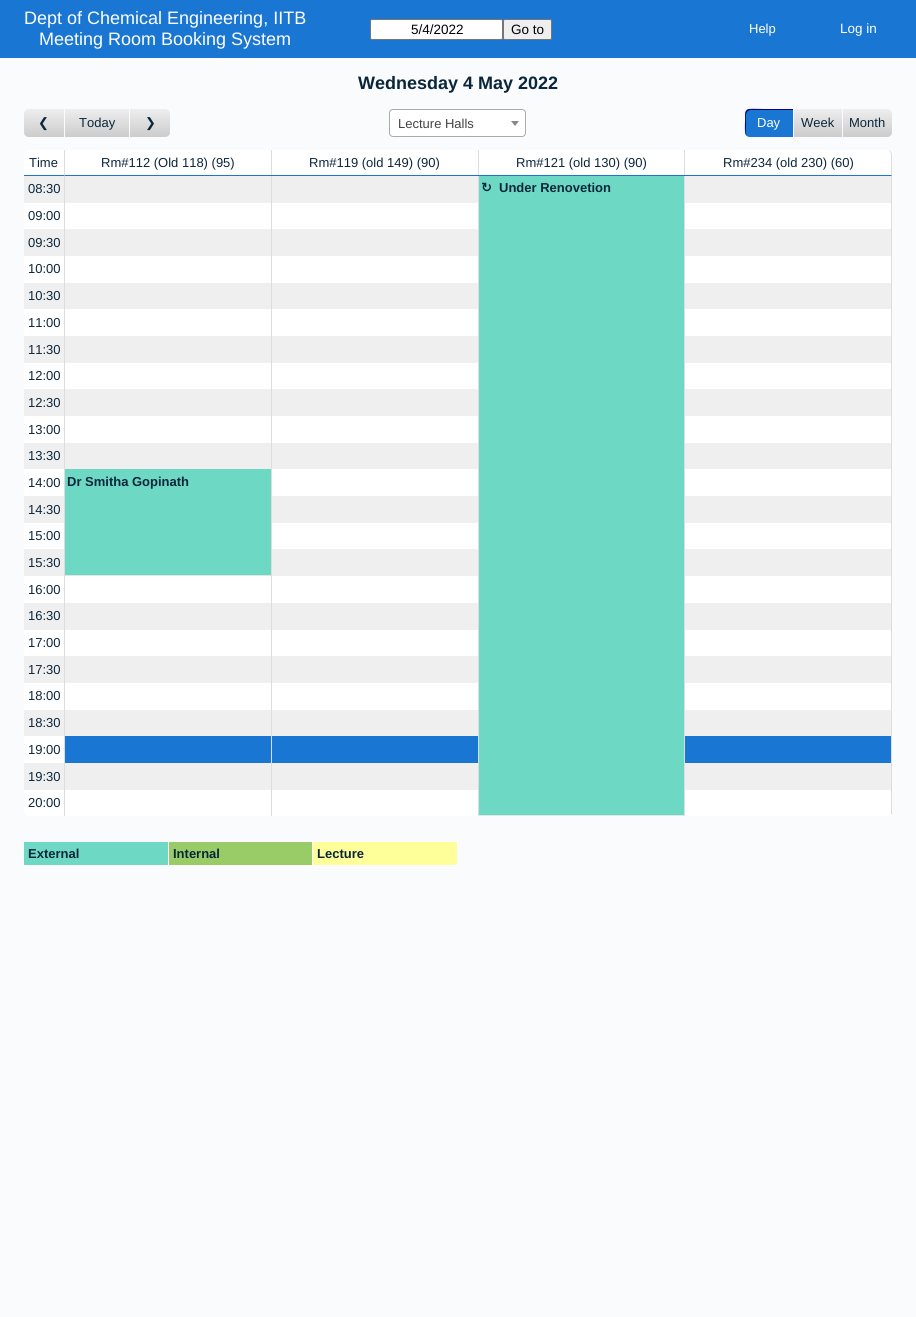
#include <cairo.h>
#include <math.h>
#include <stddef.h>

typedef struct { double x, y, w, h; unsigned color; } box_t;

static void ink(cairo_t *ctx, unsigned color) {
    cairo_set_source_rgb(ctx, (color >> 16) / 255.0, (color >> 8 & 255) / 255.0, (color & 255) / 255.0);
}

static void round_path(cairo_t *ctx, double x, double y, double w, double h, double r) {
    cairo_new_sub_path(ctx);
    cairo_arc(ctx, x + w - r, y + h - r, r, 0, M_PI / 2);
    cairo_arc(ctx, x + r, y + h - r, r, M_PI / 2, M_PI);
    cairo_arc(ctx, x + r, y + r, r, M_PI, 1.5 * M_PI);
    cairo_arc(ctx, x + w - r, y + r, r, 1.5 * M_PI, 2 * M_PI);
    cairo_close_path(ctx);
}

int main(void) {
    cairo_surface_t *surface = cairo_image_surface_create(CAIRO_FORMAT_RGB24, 916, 1317);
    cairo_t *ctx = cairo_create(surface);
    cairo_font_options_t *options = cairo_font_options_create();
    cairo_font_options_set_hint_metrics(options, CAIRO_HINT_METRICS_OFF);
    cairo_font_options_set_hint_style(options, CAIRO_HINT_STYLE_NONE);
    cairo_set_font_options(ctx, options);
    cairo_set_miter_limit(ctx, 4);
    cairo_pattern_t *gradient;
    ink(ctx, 0xF9FBFC);
    cairo_paint(ctx);
    ink(ctx, 0x1976D2);
    cairo_rectangle(ctx, 0, 0, 916, 58);
    cairo_fill(ctx);
    cairo_select_font_face(ctx, "Liberation Sans", CAIRO_FONT_SLANT_NORMAL, CAIRO_FONT_WEIGHT_NORMAL);
    cairo_set_font_size(ctx, 18);
    ink(ctx, 0xFFFFFF);
    cairo_move_to(ctx, 24, 24);
    cairo_show_text(ctx, "Dept of Chemical Engineering, IITB");
    cairo_move_to(ctx, 39, 45);
    cairo_show_text(ctx, "Meeting Room Booking System");
    round_path(ctx, 370.5, 19.5, 132, 20, 1.5);
    cairo_fill_preserve(ctx);
    ink(ctx, 0x767676);
    cairo_set_line_width(ctx, 1);
    cairo_stroke(ctx);
    cairo_set_font_size(ctx, 13.5);
    ink(ctx, 0x000000);
    cairo_move_to(ctx, 411, 34);
    cairo_show_text(ctx, "5/4/2022");
    ink(ctx, 0xEFEFEF);
    round_path(ctx, 503.5, 19.5, 48, 20, 1.5);
    cairo_fill_preserve(ctx);
    ink(ctx, 0x767676);
    cairo_stroke(ctx);
    ink(ctx, 0x000000);
    cairo_move_to(ctx, 511, 34);
    cairo_show_text(ctx, "Go to");
    cairo_set_font_size(ctx, 13);
    ink(ctx, 0xFFFFFF);
    cairo_move_to(ctx, 749, 33);
    cairo_show_text(ctx, "Help");
    cairo_set_font_size(ctx, 13.5);
    cairo_move_to(ctx, 840, 33);
    cairo_show_text(ctx, "Log in");
    cairo_select_font_face(ctx, "Liberation Sans", CAIRO_FONT_SLANT_NORMAL, CAIRO_FONT_WEIGHT_BOLD);
    cairo_set_font_size(ctx, 18);
    ink(ctx, 0x0B263B);
    cairo_move_to(ctx, 358, 89);
    cairo_show_text(ctx, "Wednesday 4 May 2022");
    gradient = cairo_pattern_create_linear(44, 109, 44, 137);
    cairo_pattern_add_color_stop_rgba(gradient, 0, 0.933, 0.933, 0.933, 1);
    cairo_pattern_add_color_stop_rgba(gradient, 1, 0.8, 0.8, 0.8, 1);
    cairo_set_source(ctx, gradient);
    cairo_pattern_destroy(gradient);
    cairo_new_path(ctx);
    cairo_move_to(ctx, 29, 109);
    cairo_line_to(ctx, 65, 109);
    cairo_line_to(ctx, 65, 137);
    cairo_line_to(ctx, 29, 137);
    cairo_curve_to(ctx, 26, 137, 24, 135, 24, 132);
    cairo_line_to(ctx, 24, 114);
    cairo_curve_to(ctx, 24, 111, 26, 109, 29, 109);
    cairo_close_path(ctx);
    cairo_fill(ctx);
    ink(ctx, 0xF9FBFC);
    cairo_rectangle(ctx, 64, 109, 1, 28);
    cairo_fill(ctx);
    cairo_select_font_face(ctx, "DejaVu Sans", CAIRO_FONT_SLANT_NORMAL, CAIRO_FONT_WEIGHT_NORMAL);
    cairo_set_font_size(ctx, 13);
    ink(ctx, 0x0B263B);
    cairo_move_to(ctx, 38, 127);
    cairo_show_text(ctx, "❮");
    gradient = cairo_pattern_create_linear(97, 109, 97, 137);
    cairo_pattern_add_color_stop_rgba(gradient, 0, 0.933, 0.933, 0.933, 1);
    cairo_pattern_add_color_stop_rgba(gradient, 1, 0.8, 0.8, 0.8, 1);
    cairo_set_source(ctx, gradient);
    cairo_pattern_destroy(gradient);
    cairo_rectangle(ctx, 65, 109, 64, 28);
    cairo_fill(ctx);
    cairo_select_font_face(ctx, "Liberation Sans", CAIRO_FONT_SLANT_NORMAL, CAIRO_FONT_WEIGHT_NORMAL);
    ink(ctx, 0x0B263B);
    cairo_move_to(ctx, 79, 127);
    cairo_show_text(ctx, "Today");
    gradient = cairo_pattern_create_linear(150, 109, 150, 137);
    cairo_pattern_add_color_stop_rgba(gradient, 0, 0.933, 0.933, 0.933, 1);
    cairo_pattern_add_color_stop_rgba(gradient, 1, 0.8, 0.8, 0.8, 1);
    cairo_set_source(ctx, gradient);
    cairo_pattern_destroy(gradient);
    cairo_new_path(ctx);
    cairo_move_to(ctx, 130, 109);
    cairo_line_to(ctx, 165, 109);
    cairo_curve_to(ctx, 168, 109, 170, 111, 170, 114);
    cairo_line_to(ctx, 170, 132);
    cairo_curve_to(ctx, 170, 135, 168, 137, 165, 137);
    cairo_line_to(ctx, 130, 137);
    cairo_close_path(ctx);
    cairo_fill(ctx);
    cairo_select_font_face(ctx, "DejaVu Sans", CAIRO_FONT_SLANT_NORMAL, CAIRO_FONT_WEIGHT_NORMAL);
    ink(ctx, 0x0B263B);
    cairo_move_to(ctx, 145, 127);
    cairo_show_text(ctx, "❯");
    ink(ctx, 0xFFFFFF);
    round_path(ctx, 389.5, 109.5, 136, 27, 3.5);
    cairo_fill_preserve(ctx);
    ink(ctx, 0xAAAAAA);
    cairo_stroke(ctx);
    cairo_select_font_face(ctx, "Liberation Sans", CAIRO_FONT_SLANT_NORMAL, CAIRO_FONT_WEIGHT_NORMAL);
    ink(ctx, 0x444444);
    cairo_move_to(ctx, 398, 128);
    cairo_show_text(ctx, "Lecture Halls");
    ink(ctx, 0x888888);
    cairo_new_path(ctx);
    cairo_move_to(ctx, 511, 121);
    cairo_line_to(ctx, 519, 121);
    cairo_line_to(ctx, 515, 126);
    cairo_close_path(ctx);
    cairo_fill(ctx);
    ink(ctx, 0x1976D2);
    cairo_new_path(ctx);
    cairo_move_to(ctx, 750, 109);
    cairo_line_to(ctx, 794, 109);
    cairo_line_to(ctx, 794, 137);
    cairo_line_to(ctx, 750, 137);
    cairo_curve_to(ctx, 747, 137, 745, 135, 745, 132);
    cairo_line_to(ctx, 745, 114);
    cairo_curve_to(ctx, 745, 111, 747, 109, 750, 109);
    cairo_close_path(ctx);
    cairo_fill(ctx);
    ink(ctx, 0x00008B);
    cairo_new_path(ctx);
    cairo_move_to(ctx, 751, 110);
    cairo_line_to(ctx, 793, 110);
    cairo_line_to(ctx, 793, 109);
    cairo_line_to(ctx, 764, 109);
    cairo_curve_to(ctx, 745, 109, 745, 106, 745, 123);
    cairo_curve_to(ctx, 745, 126, 744, 133, 747, 136);
    cairo_curve_to(ctx, 745, 133, 746, 127, 746, 124);
    cairo_curve_to(ctx, 746, 120, 744, 110, 751, 110);
    cairo_close_path(ctx);
    cairo_fill(ctx);
    ink(ctx, 0xF9FBFC);
    cairo_rectangle(ctx, 793, 109, 1, 28);
    cairo_fill(ctx);
    ink(ctx, 0xFFFFFF);
    cairo_move_to(ctx, 757, 127);
    cairo_show_text(ctx, "Day");
    gradient = cairo_pattern_create_linear(818, 109, 818, 137);
    cairo_pattern_add_color_stop_rgba(gradient, 0, 0.933, 0.933, 0.933, 1);
    cairo_pattern_add_color_stop_rgba(gradient, 1, 0.8, 0.8, 0.8, 1);
    cairo_set_source(ctx, gradient);
    cairo_pattern_destroy(gradient);
    cairo_rectangle(ctx, 794, 109, 48, 28);
    cairo_fill(ctx);
    ink(ctx, 0x0B263B);
    cairo_move_to(ctx, 801, 127);
    cairo_show_text(ctx, "Week");
    gradient = cairo_pattern_create_linear(868, 109, 868, 137);
    cairo_pattern_add_color_stop_rgba(gradient, 0, 0.933, 0.933, 0.933, 1);
    cairo_pattern_add_color_stop_rgba(gradient, 1, 0.8, 0.8, 0.8, 1);
    cairo_set_source(ctx, gradient);
    cairo_pattern_destroy(gradient);
    cairo_new_path(ctx);
    cairo_move_to(ctx, 843, 109);
    cairo_line_to(ctx, 887, 109);
    cairo_curve_to(ctx, 890, 109, 892, 111, 892, 114);
    cairo_line_to(ctx, 892, 132);
    cairo_curve_to(ctx, 892, 135, 890, 137, 887, 137);
    cairo_line_to(ctx, 843, 137);
    cairo_close_path(ctx);
    cairo_fill(ctx);
    ink(ctx, 0x0B263B);
    cairo_move_to(ctx, 849, 127);
    cairo_show_text(ctx, "Month");
    ink(ctx, 0xFFFFFF);
    cairo_new_path(ctx);
    cairo_move_to(ctx, 29, 150);
    cairo_line_to(ctx, 64, 150);
    cairo_line_to(ctx, 64, 175);
    cairo_line_to(ctx, 24, 175);
    cairo_line_to(ctx, 24, 155);
    cairo_curve_to(ctx, 24, 152, 26, 150, 29, 150);
    cairo_close_path(ctx);
    cairo_fill(ctx);
    ink(ctx, 0xDDDDDD);
    cairo_new_path(ctx);
    cairo_move_to(ctx, 65, 150);
    cairo_line_to(ctx, 64, 150);
    cairo_line_to(ctx, 64, 175);
    cairo_line_to(ctx, 65, 176);
    cairo_close_path(ctx);
    cairo_fill(ctx);
    ink(ctx, 0x1976D2);
    cairo_new_path(ctx);
    cairo_move_to(ctx, 65, 176);
    cairo_line_to(ctx, 64, 175);
    cairo_line_to(ctx, 24, 175);
    cairo_line_to(ctx, 24, 176);
    cairo_close_path(ctx);
    cairo_fill(ctx);
    ink(ctx, 0x0B263B);
    cairo_move_to(ctx, 29, 167);
    cairo_show_text(ctx, "Time");
    {
        static const box_t items[] = {
            {65, 150, 206, 25, 0xFFFFFF},
            {271, 150, 1, 666, 0xDDDDDD},
            {478, 150, 1, 666, 0xDDDDDD},
            {684, 150, 1, 666, 0xDDDDDD},
            {65, 175, 620, 1, 0x1976D2},
        };
        for (size_t i = 0; i < sizeof items / sizeof *items; i++) {
            ink(ctx, items[i].color);
            cairo_rectangle(ctx, items[i].x, items[i].y, items[i].w, items[i].h);
            cairo_fill(ctx);
        }
    }
    ink(ctx, 0x0B263B);
    cairo_move_to(ctx, 101, 167);
    cairo_show_text(ctx, "Rm#112 (Old 118) (95)");
    ink(ctx, 0xFFFFFF);
    cairo_rectangle(ctx, 272, 150, 206, 25);
    cairo_fill(ctx);
    ink(ctx, 0x0B263B);
    cairo_move_to(ctx, 309, 167);
    cairo_show_text(ctx, "Rm#119 (old 149) (90)");
    ink(ctx, 0xFFFFFF);
    cairo_rectangle(ctx, 479, 150, 205, 25);
    cairo_fill(ctx);
    ink(ctx, 0x0B263B);
    cairo_move_to(ctx, 516, 167);
    cairo_show_text(ctx, "Rm#121 (old 130) (90)");
    ink(ctx, 0xFFFFFF);
    cairo_new_path(ctx);
    cairo_move_to(ctx, 685, 150);
    cairo_line_to(ctx, 887, 150);
    cairo_curve_to(ctx, 889, 150, 891, 152, 891, 155);
    cairo_line_to(ctx, 891, 175);
    cairo_line_to(ctx, 685, 175);
    cairo_close_path(ctx);
    cairo_fill(ctx);
    ink(ctx, 0xDDDDDD);
    cairo_new_path(ctx);
    cairo_move_to(ctx, 892, 155);
    cairo_curve_to(ctx, 892, 152, 890, 150, 887, 150);
    cairo_curve_to(ctx, 889, 150, 891, 152, 891, 155);
    cairo_line_to(ctx, 891, 175);
    cairo_line_to(ctx, 892, 176);
    cairo_close_path(ctx);
    cairo_fill(ctx);
    ink(ctx, 0x1976D2);
    cairo_new_path(ctx);
    cairo_move_to(ctx, 892, 176);
    cairo_line_to(ctx, 891, 175);
    cairo_line_to(ctx, 685, 175);
    cairo_line_to(ctx, 685, 176);
    cairo_close_path(ctx);
    cairo_fill(ctx);
    ink(ctx, 0x0B263B);
    cairo_move_to(ctx, 723, 167);
    cairo_show_text(ctx, "Rm#234 (old 230) (60)");
    ink(ctx, 0xEFEFEF);
    cairo_rectangle(ctx, 24, 176, 40, 27);
    cairo_fill(ctx);
    ink(ctx, 0xDDDDDD);
    cairo_rectangle(ctx, 64, 176, 1, 614);
    cairo_fill(ctx);
    ink(ctx, 0x0B263B);
    cairo_move_to(ctx, 28, 193);
    cairo_show_text(ctx, "08:30");
    {
        static const box_t items[] = {
            {65, 176, 206, 27, 0xEFEFEF},
            {272, 176, 206, 27, 0xEFEFEF},
            {479, 176, 205, 639, 0x6DD9C4},
            {479, 815, 205, 1, 0xE4E4E4},
        };
        for (size_t i = 0; i < sizeof items / sizeof *items; i++) {
            ink(ctx, items[i].color);
            cairo_rectangle(ctx, items[i].x, items[i].y, items[i].w, items[i].h);
            cairo_fill(ctx);
        }
    }
    cairo_select_font_face(ctx, "DejaVu Sans", CAIRO_FONT_SLANT_NORMAL, CAIRO_FONT_WEIGHT_BOLD);
    ink(ctx, 0x0B263B);
    cairo_move_to(ctx, 481, 192);
    cairo_show_text(ctx, "↻");
    cairo_select_font_face(ctx, "Liberation Sans", CAIRO_FONT_SLANT_NORMAL, CAIRO_FONT_WEIGHT_BOLD);
    cairo_move_to(ctx, 499, 192);
    cairo_show_text(ctx, "Under Renovetion");
    {
        static const box_t items[] = {
            {685, 176, 206, 27, 0xEFEFEF},
            {891, 176, 1, 614, 0xDDDDDD},
            {24, 203, 40, 26, 0xFFFFFF},
        };
        for (size_t i = 0; i < sizeof items / sizeof *items; i++) {
            ink(ctx, items[i].color);
            cairo_rectangle(ctx, items[i].x, items[i].y, items[i].w, items[i].h);
            cairo_fill(ctx);
        }
    }
    cairo_select_font_face(ctx, "Liberation Sans", CAIRO_FONT_SLANT_NORMAL, CAIRO_FONT_WEIGHT_NORMAL);
    ink(ctx, 0x0B263B);
    cairo_move_to(ctx, 28, 220);
    cairo_show_text(ctx, "09:00");
    {
        static const box_t items[] = {
            {65, 203, 206, 26, 0xFFFFFF},
            {272, 203, 206, 26, 0xFFFFFF},
            {685, 203, 206, 26, 0xFFFFFF},
            {24, 229, 40, 27, 0xEFEFEF},
        };
        for (size_t i = 0; i < sizeof items / sizeof *items; i++) {
            ink(ctx, items[i].color);
            cairo_rectangle(ctx, items[i].x, items[i].y, items[i].w, items[i].h);
            cairo_fill(ctx);
        }
    }
    ink(ctx, 0x0B263B);
    cairo_move_to(ctx, 28, 247);
    cairo_show_text(ctx, "09:30");
    {
        static const box_t items[] = {
            {65, 229, 206, 27, 0xEFEFEF},
            {272, 229, 206, 27, 0xEFEFEF},
            {685, 229, 206, 27, 0xEFEFEF},
            {24, 256, 40, 27, 0xFFFFFF},
        };
        for (size_t i = 0; i < sizeof items / sizeof *items; i++) {
            ink(ctx, items[i].color);
            cairo_rectangle(ctx, items[i].x, items[i].y, items[i].w, items[i].h);
            cairo_fill(ctx);
        }
    }
    ink(ctx, 0x0B263B);
    cairo_move_to(ctx, 28, 273);
    cairo_show_text(ctx, "10:00");
    {
        static const box_t items[] = {
            {65, 256, 206, 27, 0xFFFFFF},
            {272, 256, 206, 27, 0xFFFFFF},
            {685, 256, 206, 27, 0xFFFFFF},
            {24, 283, 40, 26, 0xEFEFEF},
        };
        for (size_t i = 0; i < sizeof items / sizeof *items; i++) {
            ink(ctx, items[i].color);
            cairo_rectangle(ctx, items[i].x, items[i].y, items[i].w, items[i].h);
            cairo_fill(ctx);
        }
    }
    ink(ctx, 0x0B263B);
    cairo_move_to(ctx, 28, 300);
    cairo_show_text(ctx, "10:30");
    {
        static const box_t items[] = {
            {65, 283, 206, 26, 0xEFEFEF},
            {272, 283, 206, 26, 0xEFEFEF},
            {685, 283, 206, 26, 0xEFEFEF},
            {24, 309, 40, 27, 0xFFFFFF},
        };
        for (size_t i = 0; i < sizeof items / sizeof *items; i++) {
            ink(ctx, items[i].color);
            cairo_rectangle(ctx, items[i].x, items[i].y, items[i].w, items[i].h);
            cairo_fill(ctx);
        }
    }
    ink(ctx, 0x0B263B);
    cairo_move_to(ctx, 28, 327);
    cairo_show_text(ctx, "11:00");
    {
        static const box_t items[] = {
            {65, 309, 206, 27, 0xFFFFFF},
            {272, 309, 206, 27, 0xFFFFFF},
            {685, 309, 206, 27, 0xFFFFFF},
            {24, 336, 40, 27, 0xEFEFEF},
        };
        for (size_t i = 0; i < sizeof items / sizeof *items; i++) {
            ink(ctx, items[i].color);
            cairo_rectangle(ctx, items[i].x, items[i].y, items[i].w, items[i].h);
            cairo_fill(ctx);
        }
    }
    ink(ctx, 0x0B263B);
    cairo_move_to(ctx, 28, 354);
    cairo_show_text(ctx, "11:30");
    {
        static const box_t items[] = {
            {65, 336, 206, 27, 0xEFEFEF},
            {272, 336, 206, 27, 0xEFEFEF},
            {685, 336, 206, 27, 0xEFEFEF},
            {24, 363, 40, 26, 0xFFFFFF},
        };
        for (size_t i = 0; i < sizeof items / sizeof *items; i++) {
            ink(ctx, items[i].color);
            cairo_rectangle(ctx, items[i].x, items[i].y, items[i].w, items[i].h);
            cairo_fill(ctx);
        }
    }
    ink(ctx, 0x0B263B);
    cairo_move_to(ctx, 28, 380);
    cairo_show_text(ctx, "12:00");
    {
        static const box_t items[] = {
            {65, 363, 206, 26, 0xFFFFFF},
            {272, 363, 206, 26, 0xFFFFFF},
            {685, 363, 206, 26, 0xFFFFFF},
            {24, 389, 40, 27, 0xEFEFEF},
        };
        for (size_t i = 0; i < sizeof items / sizeof *items; i++) {
            ink(ctx, items[i].color);
            cairo_rectangle(ctx, items[i].x, items[i].y, items[i].w, items[i].h);
            cairo_fill(ctx);
        }
    }
    ink(ctx, 0x0B263B);
    cairo_move_to(ctx, 28, 407);
    cairo_show_text(ctx, "12:30");
    {
        static const box_t items[] = {
            {65, 389, 206, 27, 0xEFEFEF},
            {272, 389, 206, 27, 0xEFEFEF},
            {685, 389, 206, 27, 0xEFEFEF},
            {24, 416, 40, 27, 0xFFFFFF},
        };
        for (size_t i = 0; i < sizeof items / sizeof *items; i++) {
            ink(ctx, items[i].color);
            cairo_rectangle(ctx, items[i].x, items[i].y, items[i].w, items[i].h);
            cairo_fill(ctx);
        }
    }
    ink(ctx, 0x0B263B);
    cairo_move_to(ctx, 28, 434);
    cairo_show_text(ctx, "13:00");
    {
        static const box_t items[] = {
            {65, 416, 206, 27, 0xFFFFFF},
            {272, 416, 206, 27, 0xFFFFFF},
            {685, 416, 206, 27, 0xFFFFFF},
            {24, 443, 40, 26, 0xEFEFEF},
        };
        for (size_t i = 0; i < sizeof items / sizeof *items; i++) {
            ink(ctx, items[i].color);
            cairo_rectangle(ctx, items[i].x, items[i].y, items[i].w, items[i].h);
            cairo_fill(ctx);
        }
    }
    ink(ctx, 0x0B263B);
    cairo_move_to(ctx, 28, 460);
    cairo_show_text(ctx, "13:30");
    {
        static const box_t items[] = {
            {65, 443, 206, 26, 0xEFEFEF},
            {272, 443, 206, 26, 0xEFEFEF},
            {685, 443, 206, 26, 0xEFEFEF},
            {24, 469, 40, 27, 0xFFFFFF},
        };
        for (size_t i = 0; i < sizeof items / sizeof *items; i++) {
            ink(ctx, items[i].color);
            cairo_rectangle(ctx, items[i].x, items[i].y, items[i].w, items[i].h);
            cairo_fill(ctx);
        }
    }
    ink(ctx, 0x0B263B);
    cairo_move_to(ctx, 28, 487);
    cairo_show_text(ctx, "14:00");
    ink(ctx, 0x6DD9C4);
    cairo_rectangle(ctx, 65, 469, 206, 106);
    cairo_fill(ctx);
    ink(ctx, 0xE4E4E4);
    cairo_rectangle(ctx, 65, 575, 206, 1);
    cairo_fill(ctx);
    cairo_select_font_face(ctx, "Liberation Sans", CAIRO_FONT_SLANT_NORMAL, CAIRO_FONT_WEIGHT_BOLD);
    ink(ctx, 0x0B263B);
    cairo_move_to(ctx, 67, 486);
    cairo_show_text(ctx, "Dr Smitha Gopinath");
    {
        static const box_t items[] = {
            {272, 469, 206, 27, 0xFFFFFF},
            {685, 469, 206, 27, 0xFFFFFF},
            {24, 496, 40, 27, 0xEFEFEF},
        };
        for (size_t i = 0; i < sizeof items / sizeof *items; i++) {
            ink(ctx, items[i].color);
            cairo_rectangle(ctx, items[i].x, items[i].y, items[i].w, items[i].h);
            cairo_fill(ctx);
        }
    }
    cairo_select_font_face(ctx, "Liberation Sans", CAIRO_FONT_SLANT_NORMAL, CAIRO_FONT_WEIGHT_NORMAL);
    ink(ctx, 0x0B263B);
    cairo_move_to(ctx, 28, 514);
    cairo_show_text(ctx, "14:30");
    {
        static const box_t items[] = {
            {272, 496, 206, 27, 0xEFEFEF},
            {685, 496, 206, 27, 0xEFEFEF},
            {24, 523, 40, 26, 0xFFFFFF},
        };
        for (size_t i = 0; i < sizeof items / sizeof *items; i++) {
            ink(ctx, items[i].color);
            cairo_rectangle(ctx, items[i].x, items[i].y, items[i].w, items[i].h);
            cairo_fill(ctx);
        }
    }
    ink(ctx, 0x0B263B);
    cairo_move_to(ctx, 28, 540);
    cairo_show_text(ctx, "15:00");
    {
        static const box_t items[] = {
            {272, 523, 206, 26, 0xFFFFFF},
            {685, 523, 206, 26, 0xFFFFFF},
            {24, 549, 40, 27, 0xEFEFEF},
        };
        for (size_t i = 0; i < sizeof items / sizeof *items; i++) {
            ink(ctx, items[i].color);
            cairo_rectangle(ctx, items[i].x, items[i].y, items[i].w, items[i].h);
            cairo_fill(ctx);
        }
    }
    ink(ctx, 0x0B263B);
    cairo_move_to(ctx, 28, 567);
    cairo_show_text(ctx, "15:30");
    {
        static const box_t items[] = {
            {272, 549, 206, 27, 0xEFEFEF},
            {685, 549, 206, 27, 0xEFEFEF},
            {24, 576, 40, 27, 0xFFFFFF},
        };
        for (size_t i = 0; i < sizeof items / sizeof *items; i++) {
            ink(ctx, items[i].color);
            cairo_rectangle(ctx, items[i].x, items[i].y, items[i].w, items[i].h);
            cairo_fill(ctx);
        }
    }
    ink(ctx, 0x0B263B);
    cairo_move_to(ctx, 28, 594);
    cairo_show_text(ctx, "16:00");
    {
        static const box_t items[] = {
            {65, 576, 206, 27, 0xFFFFFF},
            {272, 576, 206, 27, 0xFFFFFF},
            {685, 576, 206, 27, 0xFFFFFF},
            {24, 603, 40, 27, 0xEFEFEF},
        };
        for (size_t i = 0; i < sizeof items / sizeof *items; i++) {
            ink(ctx, items[i].color);
            cairo_rectangle(ctx, items[i].x, items[i].y, items[i].w, items[i].h);
            cairo_fill(ctx);
        }
    }
    ink(ctx, 0x0B263B);
    cairo_move_to(ctx, 28, 620);
    cairo_show_text(ctx, "16:30");
    {
        static const box_t items[] = {
            {65, 603, 206, 27, 0xEFEFEF},
            {272, 603, 206, 27, 0xEFEFEF},
            {685, 603, 206, 27, 0xEFEFEF},
            {24, 630, 40, 26, 0xFFFFFF},
        };
        for (size_t i = 0; i < sizeof items / sizeof *items; i++) {
            ink(ctx, items[i].color);
            cairo_rectangle(ctx, items[i].x, items[i].y, items[i].w, items[i].h);
            cairo_fill(ctx);
        }
    }
    ink(ctx, 0x0B263B);
    cairo_move_to(ctx, 28, 647);
    cairo_show_text(ctx, "17:00");
    {
        static const box_t items[] = {
            {65, 630, 206, 26, 0xFFFFFF},
            {272, 630, 206, 26, 0xFFFFFF},
            {685, 630, 206, 26, 0xFFFFFF},
            {24, 656, 40, 27, 0xEFEFEF},
        };
        for (size_t i = 0; i < sizeof items / sizeof *items; i++) {
            ink(ctx, items[i].color);
            cairo_rectangle(ctx, items[i].x, items[i].y, items[i].w, items[i].h);
            cairo_fill(ctx);
        }
    }
    ink(ctx, 0x0B263B);
    cairo_move_to(ctx, 28, 674);
    cairo_show_text(ctx, "17:30");
    {
        static const box_t items[] = {
            {65, 656, 206, 27, 0xEFEFEF},
            {272, 656, 206, 27, 0xEFEFEF},
            {685, 656, 206, 27, 0xEFEFEF},
            {24, 683, 40, 27, 0xFFFFFF},
        };
        for (size_t i = 0; i < sizeof items / sizeof *items; i++) {
            ink(ctx, items[i].color);
            cairo_rectangle(ctx, items[i].x, items[i].y, items[i].w, items[i].h);
            cairo_fill(ctx);
        }
    }
    ink(ctx, 0x0B263B);
    cairo_move_to(ctx, 28, 700);
    cairo_show_text(ctx, "18:00");
    {
        static const box_t items[] = {
            {65, 683, 206, 27, 0xFFFFFF},
            {272, 683, 206, 27, 0xFFFFFF},
            {685, 683, 206, 27, 0xFFFFFF},
            {24, 710, 40, 26, 0xEFEFEF},
        };
        for (size_t i = 0; i < sizeof items / sizeof *items; i++) {
            ink(ctx, items[i].color);
            cairo_rectangle(ctx, items[i].x, items[i].y, items[i].w, items[i].h);
            cairo_fill(ctx);
        }
    }
    ink(ctx, 0x0B263B);
    cairo_move_to(ctx, 28, 727);
    cairo_show_text(ctx, "18:30");
    {
        static const box_t items[] = {
            {65, 710, 206, 26, 0xEFEFEF},
            {272, 710, 206, 26, 0xEFEFEF},
            {685, 710, 206, 26, 0xEFEFEF},
            {24, 736, 40, 27, 0xFFFFFF},
        };
        for (size_t i = 0; i < sizeof items / sizeof *items; i++) {
            ink(ctx, items[i].color);
            cairo_rectangle(ctx, items[i].x, items[i].y, items[i].w, items[i].h);
            cairo_fill(ctx);
        }
    }
    ink(ctx, 0x0B263B);
    cairo_move_to(ctx, 28, 754);
    cairo_show_text(ctx, "19:00");
    {
        static const box_t items[] = {
            {65, 736, 206, 27, 0x1976D2},
            {272, 736, 206, 27, 0x1976D2},
            {685, 736, 206, 27, 0x1976D2},
            {24, 763, 40, 27, 0xEFEFEF},
        };
        for (size_t i = 0; i < sizeof items / sizeof *items; i++) {
            ink(ctx, items[i].color);
            cairo_rectangle(ctx, items[i].x, items[i].y, items[i].w, items[i].h);
            cairo_fill(ctx);
        }
    }
    ink(ctx, 0x0B263B);
    cairo_move_to(ctx, 28, 781);
    cairo_show_text(ctx, "19:30");
    {
        static const box_t items[] = {
            {65, 763, 206, 27, 0xEFEFEF},
            {272, 763, 206, 27, 0xEFEFEF},
            {685, 763, 206, 27, 0xEFEFEF},
        };
        for (size_t i = 0; i < sizeof items / sizeof *items; i++) {
            ink(ctx, items[i].color);
            cairo_rectangle(ctx, items[i].x, items[i].y, items[i].w, items[i].h);
            cairo_fill(ctx);
        }
    }
    ink(ctx, 0xFFFFFF);
    cairo_new_path(ctx);
    cairo_move_to(ctx, 24, 790);
    cairo_line_to(ctx, 65, 790);
    cairo_line_to(ctx, 65, 816);
    cairo_line_to(ctx, 29, 816);
    cairo_curve_to(ctx, 26, 816, 24, 814, 24, 811);
    cairo_close_path(ctx);
    cairo_fill(ctx);
    ink(ctx, 0xDDDDDD);
    cairo_rectangle(ctx, 64, 790, 1, 26);
    cairo_fill(ctx);
    ink(ctx, 0x0B263B);
    cairo_move_to(ctx, 28, 807);
    cairo_show_text(ctx, "20:00");
    ink(ctx, 0xFFFFFF);
    cairo_rectangle(ctx, 65, 790, 206, 26);
    cairo_fill(ctx);
    cairo_rectangle(ctx, 272, 790, 206, 26);
    cairo_fill(ctx);
    cairo_new_path(ctx);
    cairo_move_to(ctx, 685, 790);
    cairo_line_to(ctx, 892, 790);
    cairo_line_to(ctx, 892, 811);
    cairo_curve_to(ctx, 892, 814, 890, 816, 887, 816);
    cairo_line_to(ctx, 685, 816);
    cairo_close_path(ctx);
    cairo_fill(ctx);
    ink(ctx, 0xDDDDDD);
    cairo_rectangle(ctx, 891, 790, 1, 24);
    cairo_fill(ctx);
    ink(ctx, 0x6DD9C4);
    cairo_rectangle(ctx, 24, 842, 144, 23);
    cairo_fill(ctx);
    cairo_save(ctx);
    cairo_rectangle(ctx, 24, 58, 868, 808);
    cairo_clip(ctx);
    cairo_rectangle(ctx, 23.5, 841.5, 145, 24);
    ink(ctx, 0xFFFFFF);
    cairo_stroke(ctx);
    cairo_restore(ctx);
    cairo_select_font_face(ctx, "Liberation Sans", CAIRO_FONT_SLANT_NORMAL, CAIRO_FONT_WEIGHT_BOLD);
    ink(ctx, 0x0B263B);
    cairo_move_to(ctx, 28, 858);
    cairo_show_text(ctx, "External");
    ink(ctx, 0x99CC66);
    cairo_rectangle(ctx, 168.5, 841.5, 144, 24);
    cairo_fill_preserve(ctx);
    ink(ctx, 0xFFFFFF);
    cairo_stroke(ctx);
    ink(ctx, 0x0B263B);
    cairo_move_to(ctx, 173, 858);
    cairo_show_text(ctx, "Internal");
    ink(ctx, 0xFFFF99);
    cairo_rectangle(ctx, 312.5, 841.5, 145, 24);
    cairo_fill_preserve(ctx);
    ink(ctx, 0xFFFFFF);
    cairo_stroke(ctx);
    ink(ctx, 0x0B263B);
    cairo_move_to(ctx, 317, 858);
    cairo_show_text(ctx, "Lecture");
    cairo_surface_write_to_png(surface, "image.png");
    cairo_font_options_destroy(options);
    cairo_destroy(ctx);
    cairo_surface_destroy(surface);
    return 0;
}
